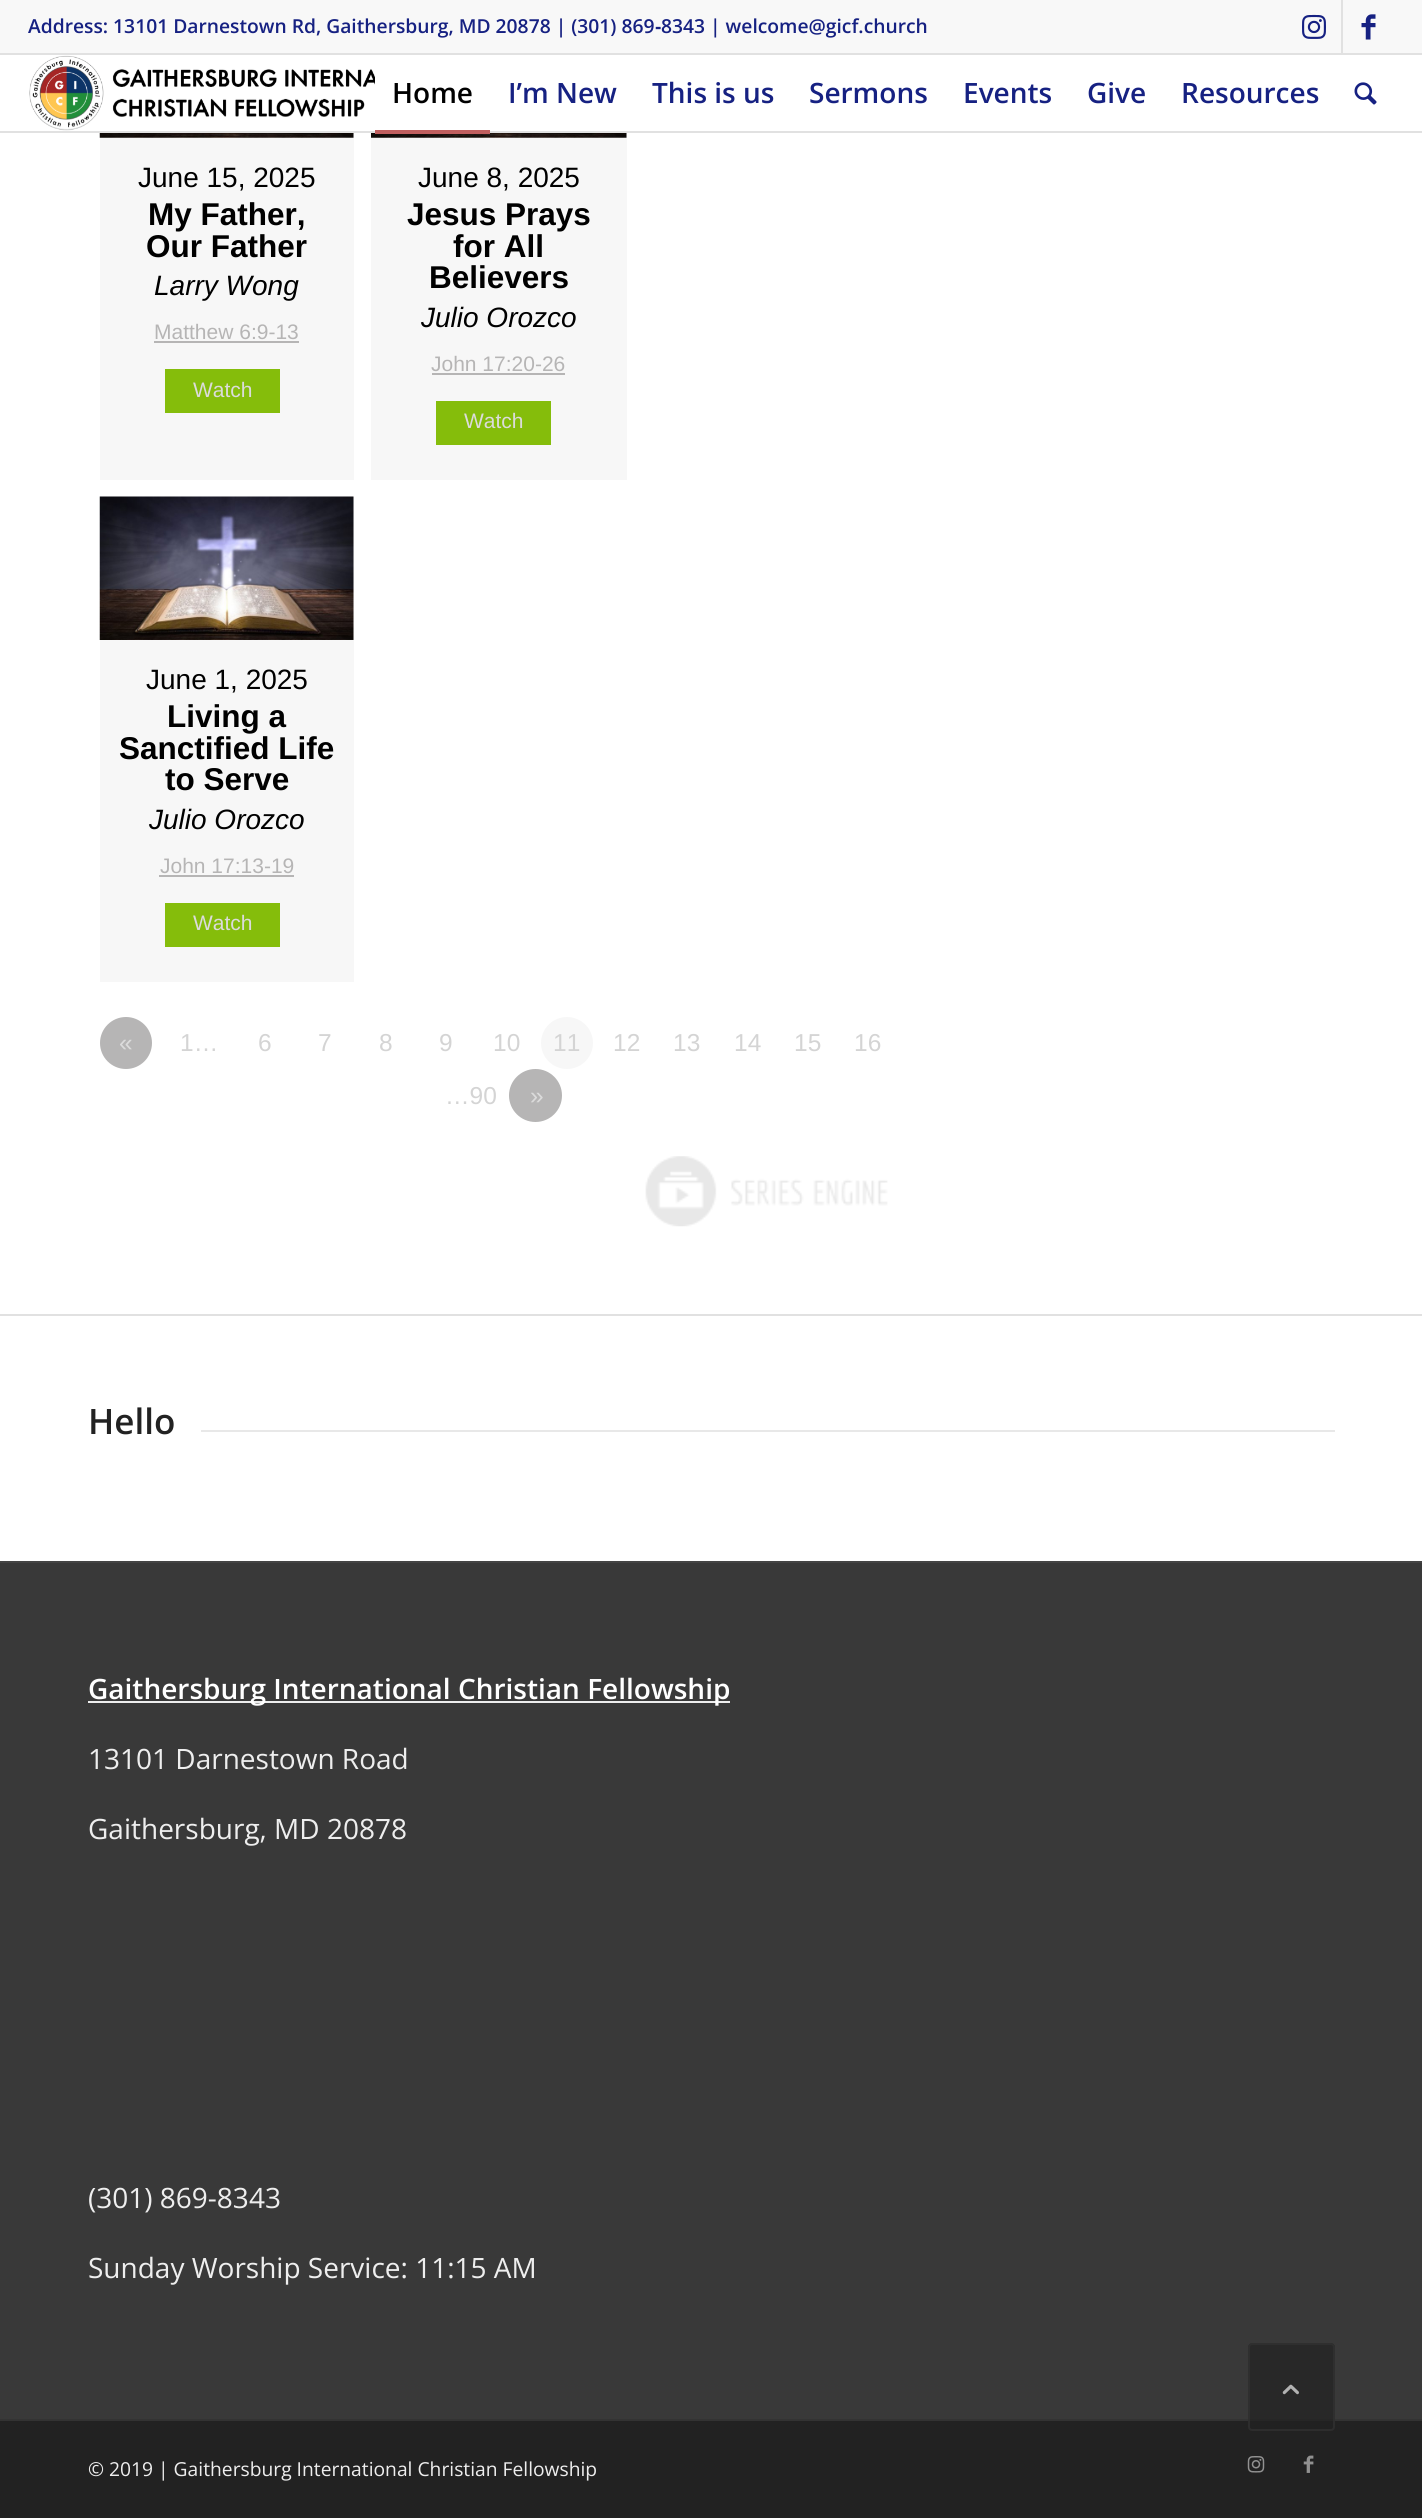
#include <cairo.h>
#include <math.h>
#include <stddef.h>

typedef struct { double x, y; const char *s; } line_t;
typedef struct { double x, y, w, h; unsigned color; } box_t;

static void ink(cairo_t *ctx, unsigned color) {
    cairo_set_source_rgb(ctx, (color >> 16) / 255.0, (color >> 8 & 255) / 255.0, (color & 255) / 255.0);
}

static void round_path(cairo_t *ctx, double x, double y, double w, double h, double r) {
    cairo_new_sub_path(ctx);
    cairo_arc(ctx, x + w - r, y + h - r, r, 0, M_PI / 2);
    cairo_arc(ctx, x + r, y + h - r, r, M_PI / 2, M_PI);
    cairo_arc(ctx, x + r, y + r, r, M_PI, 1.5 * M_PI);
    cairo_arc(ctx, x + w - r, y + r, r, 1.5 * M_PI, 2 * M_PI);
    cairo_close_path(ctx);
}

static void paste(cairo_t *ctx, const char *path, double x, double y, double w, double h) {
    cairo_surface_t *image = cairo_image_surface_create_from_png(path);
    cairo_save(ctx);
    cairo_set_source_surface(ctx, image, x, y);
    cairo_rectangle(ctx, x, y, w, h);
    cairo_fill(ctx);
    cairo_restore(ctx);
    cairo_surface_destroy(image);
}

int main(void) {
    cairo_surface_t *surface = cairo_image_surface_create(CAIRO_FORMAT_RGB24, 1422, 2518);
    cairo_t *ctx = cairo_create(surface);
    cairo_font_options_t *options = cairo_font_options_create();
    cairo_font_options_set_hint_metrics(options, CAIRO_HINT_METRICS_OFF);
    cairo_font_options_set_hint_style(options, CAIRO_HINT_STYLE_NONE);
    cairo_set_font_options(ctx, options);
    cairo_set_miter_limit(ctx, 4);
    ink(ctx, 0xFFFFFF);
    cairo_paint(ctx);
    ink(ctx, 0xF8F8F8);
    cairo_rectangle(ctx, 0, 0, 1422, 53);
    cairo_fill(ctx);
    ink(ctx, 0xE1E1E1);
    cairo_rectangle(ctx, 0, 53, 1422, 2);
    cairo_fill(ctx);
    cairo_select_font_face(ctx, "Open Sans SemiBold", CAIRO_FONT_SLANT_NORMAL, CAIRO_FONT_WEIGHT_NORMAL);
    cairo_set_font_size(ctx, 19.25);
    ink(ctx, 0x162182);
    cairo_move_to(ctx, 28, 33);
    cairo_show_text(ctx, "Address: 13101 Darnestown Rd, Gaithersburg, MD 20878 | (301) 869");
    cairo_select_font_face(ctx, "Liberation Sans", CAIRO_FONT_SLANT_NORMAL, CAIRO_FONT_WEIGHT_BOLD);
    cairo_move_to(ctx, 655, 33);
    cairo_show_text(ctx, "‐");
    cairo_select_font_face(ctx, "Open Sans SemiBold", CAIRO_FONT_SLANT_NORMAL, CAIRO_FONT_WEIGHT_NORMAL);
    cairo_move_to(ctx, 661, 33);
    cairo_show_text(ctx, "8343 | welcome@gicf.church");
    ink(ctx, 0xE1E1E1);
    cairo_rectangle(ctx, 1341, 0, 2, 53);
    cairo_fill(ctx);
    paste(ctx, "media/1.png", 1302, 14, 24, 25);
    paste(ctx, "media/2.png", 1361, 14, 15, 26);
    cairo_rectangle(ctx, 0, 131, 1422, 2);
    cairo_fill(ctx);
    paste(ctx, "media/3.png", 28, 55, 347, 76);
    cairo_set_font_size(ctx, 28);
    ink(ctx, 0x000000);
    cairo_move_to(ctx, 392, 103);
    cairo_show_text(ctx, "Home");
    ink(ctx, 0xF7F7F7);
    cairo_rectangle(ctx, 371, 133, 256, 347);
    cairo_fill(ctx);
    paste(ctx, "media/6.png", 371, 133, 256, 5);
    ink(ctx, 0xC05F5F);
    cairo_rectangle(ctx, 375, 130, 115, 4);
    cairo_fill(ctx);
    ink(ctx, 0x162182);
    {
        static const line_t items[] = {
            {508, 103, "I’m New"},
            {652, 103, "This is us"},
            {809, 103, "Sermons"},
            {963, 103, "Events"},
            {1087, 103, "Give"},
            {1181, 103, "Resources"},
        };
        for (size_t i = 0; i < sizeof items / sizeof *items; i++) {
            cairo_move_to(ctx, items[i].x, items[i].y);
            cairo_show_text(ctx, items[i].s);
        }
    }
    paste(ctx, "media/4.png", 1354, 82, 23, 23);
    ink(ctx, 0xF7F7F7);
    cairo_rectangle(ctx, 100, 133, 254, 347);
    cairo_fill(ctx);
    paste(ctx, "media/5.png", 99, 133, 255, 5);
    cairo_select_font_face(ctx, "Liberation Sans", CAIRO_FONT_SLANT_NORMAL, CAIRO_FONT_WEIGHT_NORMAL);
    ink(ctx, 0x000000);
    cairo_move_to(ctx, 138, 187);
    cairo_show_text(ctx, "June 15, 2025");
    cairo_select_font_face(ctx, "Liberation Sans", CAIRO_FONT_SLANT_NORMAL, CAIRO_FONT_WEIGHT_BOLD);
    cairo_set_font_size(ctx, 31.5);
    cairo_move_to(ctx, 148, 225);
    cairo_show_text(ctx, "My Father,");
    cairo_move_to(ctx, 146, 257);
    cairo_show_text(ctx, "Our Father");
    cairo_select_font_face(ctx, "Liberation Sans", CAIRO_FONT_SLANT_ITALIC, CAIRO_FONT_WEIGHT_NORMAL);
    cairo_set_font_size(ctx, 28);
    cairo_move_to(ctx, 154, 295);
    cairo_show_text(ctx, "Larry Wong");
    cairo_select_font_face(ctx, "Liberation Sans", CAIRO_FONT_SLANT_NORMAL, CAIRO_FONT_WEIGHT_NORMAL);
    cairo_set_font_size(ctx, 21);
    ink(ctx, 0xB6B5B5);
    cairo_move_to(ctx, 154, 339);
    cairo_show_text(ctx, "Matthew 6:9-13");
    cairo_rectangle(ctx, 154, 341, 145, 2);
    cairo_fill(ctx);
    ink(ctx, 0x85BD0B);
    cairo_rectangle(ctx, 165, 369, 115, 44);
    cairo_fill(ctx);
    ink(ctx, 0xDBDBDB);
    cairo_move_to(ctx, 193, 397);
    cairo_show_text(ctx, "Watch");
    cairo_set_font_size(ctx, 28);
    ink(ctx, 0x000000);
    cairo_move_to(ctx, 418, 187);
    cairo_show_text(ctx, "June 8, 2025");
    cairo_select_font_face(ctx, "Liberation Sans", CAIRO_FONT_SLANT_NORMAL, CAIRO_FONT_WEIGHT_BOLD);
    cairo_set_font_size(ctx, 31.5);
    {
        static const line_t items[] = {
            {407, 225, "Jesus Prays"},
            {453, 257, "for All"},
            {429, 288, "Believers"},
        };
        for (size_t i = 0; i < sizeof items / sizeof *items; i++) {
            cairo_move_to(ctx, items[i].x, items[i].y);
            cairo_show_text(ctx, items[i].s);
        }
    }
    cairo_select_font_face(ctx, "Liberation Sans", CAIRO_FONT_SLANT_ITALIC, CAIRO_FONT_WEIGHT_NORMAL);
    cairo_set_font_size(ctx, 28);
    cairo_move_to(ctx, 421, 327);
    cairo_show_text(ctx, "Julio Orozco");
    cairo_select_font_face(ctx, "Liberation Sans", CAIRO_FONT_SLANT_NORMAL, CAIRO_FONT_WEIGHT_NORMAL);
    cairo_set_font_size(ctx, 21);
    ink(ctx, 0xB6B5B5);
    cairo_move_to(ctx, 431, 371);
    cairo_show_text(ctx, "John 17:20-26");
    cairo_rectangle(ctx, 432, 373, 133, 2);
    cairo_fill(ctx);
    ink(ctx, 0x85BD0B);
    cairo_rectangle(ctx, 436, 401, 115, 44);
    cairo_fill(ctx);
    ink(ctx, 0xDBDBDB);
    cairo_move_to(ctx, 464, 428);
    cairo_show_text(ctx, "Watch");
    ink(ctx, 0xF7F7F7);
    cairo_rectangle(ctx, 100, 497, 254, 485);
    cairo_fill(ctx);
    paste(ctx, "media/7.png", 99, 496, 255, 144);
    cairo_set_font_size(ctx, 28);
    ink(ctx, 0x000000);
    cairo_move_to(ctx, 146, 689);
    cairo_show_text(ctx, "June 1, 2025");
    cairo_select_font_face(ctx, "Liberation Sans", CAIRO_FONT_SLANT_NORMAL, CAIRO_FONT_WEIGHT_BOLD);
    cairo_set_font_size(ctx, 31.5);
    {
        static const line_t items[] = {
            {167, 727, "Living a"},
            {119, 759, "Sanctified Life"},
            {165, 790, "to Serve"},
        };
        for (size_t i = 0; i < sizeof items / sizeof *items; i++) {
            cairo_move_to(ctx, items[i].x, items[i].y);
            cairo_show_text(ctx, items[i].s);
        }
    }
    cairo_select_font_face(ctx, "Liberation Sans", CAIRO_FONT_SLANT_ITALIC, CAIRO_FONT_WEIGHT_NORMAL);
    cairo_set_font_size(ctx, 28);
    cairo_move_to(ctx, 149, 829);
    cairo_show_text(ctx, "Julio Orozco");
    cairo_select_font_face(ctx, "Liberation Sans", CAIRO_FONT_SLANT_NORMAL, CAIRO_FONT_WEIGHT_NORMAL);
    cairo_set_font_size(ctx, 21);
    ink(ctx, 0xB6B5B5);
    cairo_move_to(ctx, 160, 873);
    cairo_show_text(ctx, "John 17:13-19");
    cairo_rectangle(ctx, 159, 875, 135, 2);
    cairo_fill(ctx);
    ink(ctx, 0x85BD0B);
    cairo_rectangle(ctx, 165, 903, 115, 44);
    cairo_fill(ctx);
    ink(ctx, 0xDBDBDB);
    cairo_move_to(ctx, 193, 930);
    cairo_show_text(ctx, "Watch");
    ink(ctx, 0xB6B5B5);
    cairo_new_path(ctx);
    cairo_arc(ctx, 126, 1043, 26, 0, 2 * M_PI);
    cairo_fill(ctx);
    cairo_set_font_size(ctx, 24.5);
    ink(ctx, 0xDBDBDB);
    cairo_move_to(ctx, 119, 1051);
    cairo_show_text(ctx, "«");
    ink(ctx, 0xD4D4D4);
    {
        static const line_t items[] = {
            {180, 1051, "1…"},
            {258, 1051, "6"},
            {318, 1051, "7"},
            {379, 1051, "8"},
            {439, 1051, "9"},
            {493, 1051, "10"},
        };
        for (size_t i = 0; i < sizeof items / sizeof *items; i++) {
            cairo_move_to(ctx, items[i].x, items[i].y);
            cairo_show_text(ctx, items[i].s);
        }
    }
    ink(ctx, 0xF7F7F7);
    cairo_new_path(ctx);
    cairo_arc(ctx, 567, 1043, 26, 0, 2 * M_PI);
    cairo_fill(ctx);
    ink(ctx, 0xD4D4D4);
    {
        static const line_t items[] = {
            {553, 1051, "11"},
            {613, 1051, "12"},
            {673, 1051, "13"},
            {734, 1051, "14"},
            {794, 1051, "15"},
            {854, 1051, "16"},
            {445, 1104, "…90"},
        };
        for (size_t i = 0; i < sizeof items / sizeof *items; i++) {
            cairo_move_to(ctx, items[i].x, items[i].y);
            cairo_show_text(ctx, items[i].s);
        }
    }
    ink(ctx, 0xB6B5B5);
    cairo_new_path(ctx);
    cairo_arc(ctx, 535.5, 1095.5, 26.5, 0, 2 * M_PI);
    cairo_fill(ctx);
    ink(ctx, 0xDBDBDB);
    cairo_move_to(ctx, 530, 1104);
    cairo_show_text(ctx, "»");
    paste(ctx, "media/8.png", 645, 1156, 243, 71);
    ink(ctx, 0xE1E1E1);
    cairo_rectangle(ctx, 0, 1314, 1422, 2);
    cairo_fill(ctx);
    cairo_select_font_face(ctx, "Open Sans SemiBold", CAIRO_FONT_SLANT_NORMAL, CAIRO_FONT_WEIGHT_NORMAL);
    cairo_set_font_size(ctx, 35);
    ink(ctx, 0x222222);
    cairo_move_to(ctx, 88, 1434);
    cairo_show_text(ctx, "Hello");
    {
        static const box_t items[] = {
            {201, 1430, 1134, 2, 0xE8E8E8},
            {0, 1563, 1422, 856, 0x393939},
            {0, 1561, 1422, 2, 0x444444},
            {88, 1701, 642, 2, 0xEEEEEE},
        };
        for (size_t i = 0; i < sizeof items / sizeof *items; i++) {
            ink(ctx, items[i].color);
            cairo_rectangle(ctx, items[i].x, items[i].y, items[i].w, items[i].h);
            cairo_fill(ctx);
        }
    }
    cairo_set_font_size(ctx, 28);
    ink(ctx, 0xFFFFFF);
    cairo_move_to(ctx, 88, 1699);
    cairo_show_text(ctx, "Gaithersburg International Christian Fellowship");
    cairo_select_font_face(ctx, "Open Sans", CAIRO_FONT_SLANT_NORMAL, CAIRO_FONT_WEIGHT_NORMAL);
    ink(ctx, 0xEEEEEE);
    {
        static const line_t items[] = {
            {88, 1769, "13101 Darnestown Road"},
            {88, 1839, "Gaithersburg, MD 20878"},
            {88, 2208, "(301) 869-8343"},
            {88, 2278, "Sunday Worship Service: 11:15 AM"},
        };
        for (size_t i = 0; i < sizeof items / sizeof *items; i++) {
            cairo_move_to(ctx, items[i].x, items[i].y);
            cairo_show_text(ctx, items[i].s);
        }
    }
    ink(ctx, 0x222222);
    cairo_rectangle(ctx, 0, 2421, 1422, 97);
    cairo_fill(ctx);
    ink(ctx, 0x333333);
    cairo_rectangle(ctx, 0, 2419, 1422, 2);
    cairo_fill(ctx);
    cairo_set_font_size(ctx, 19.25);
    ink(ctx, 0xEEEEEE);
    cairo_move_to(ctx, 88, 2476);
    cairo_show_text(ctx, "© 2019 | Gaithersburg International Christian Fellowship");
    paste(ctx, "media/9.png", 1247, 2456, 18, 17);
    paste(ctx, "media/10.png", 1303, 2455, 11, 18);
    cairo_set_source_rgba(ctx, 0.133, 0.133, 0.133, 0.7);
    round_path(ctx, 1248, 2343, 87, 88, 4);
    cairo_fill(ctx);
    round_path(ctx, 1249, 2344, 85, 86, 3);
    cairo_set_source_rgba(ctx, 0.2, 0.2, 0.2, 0.7);
    cairo_stroke(ctx);
    paste(ctx, "media/11.png", 1282, 2384, 17, 11);
    cairo_surface_write_to_png(surface, "image.png");
    cairo_font_options_destroy(options);
    cairo_destroy(ctx);
    cairo_surface_destroy(surface);
    return 0;
}
